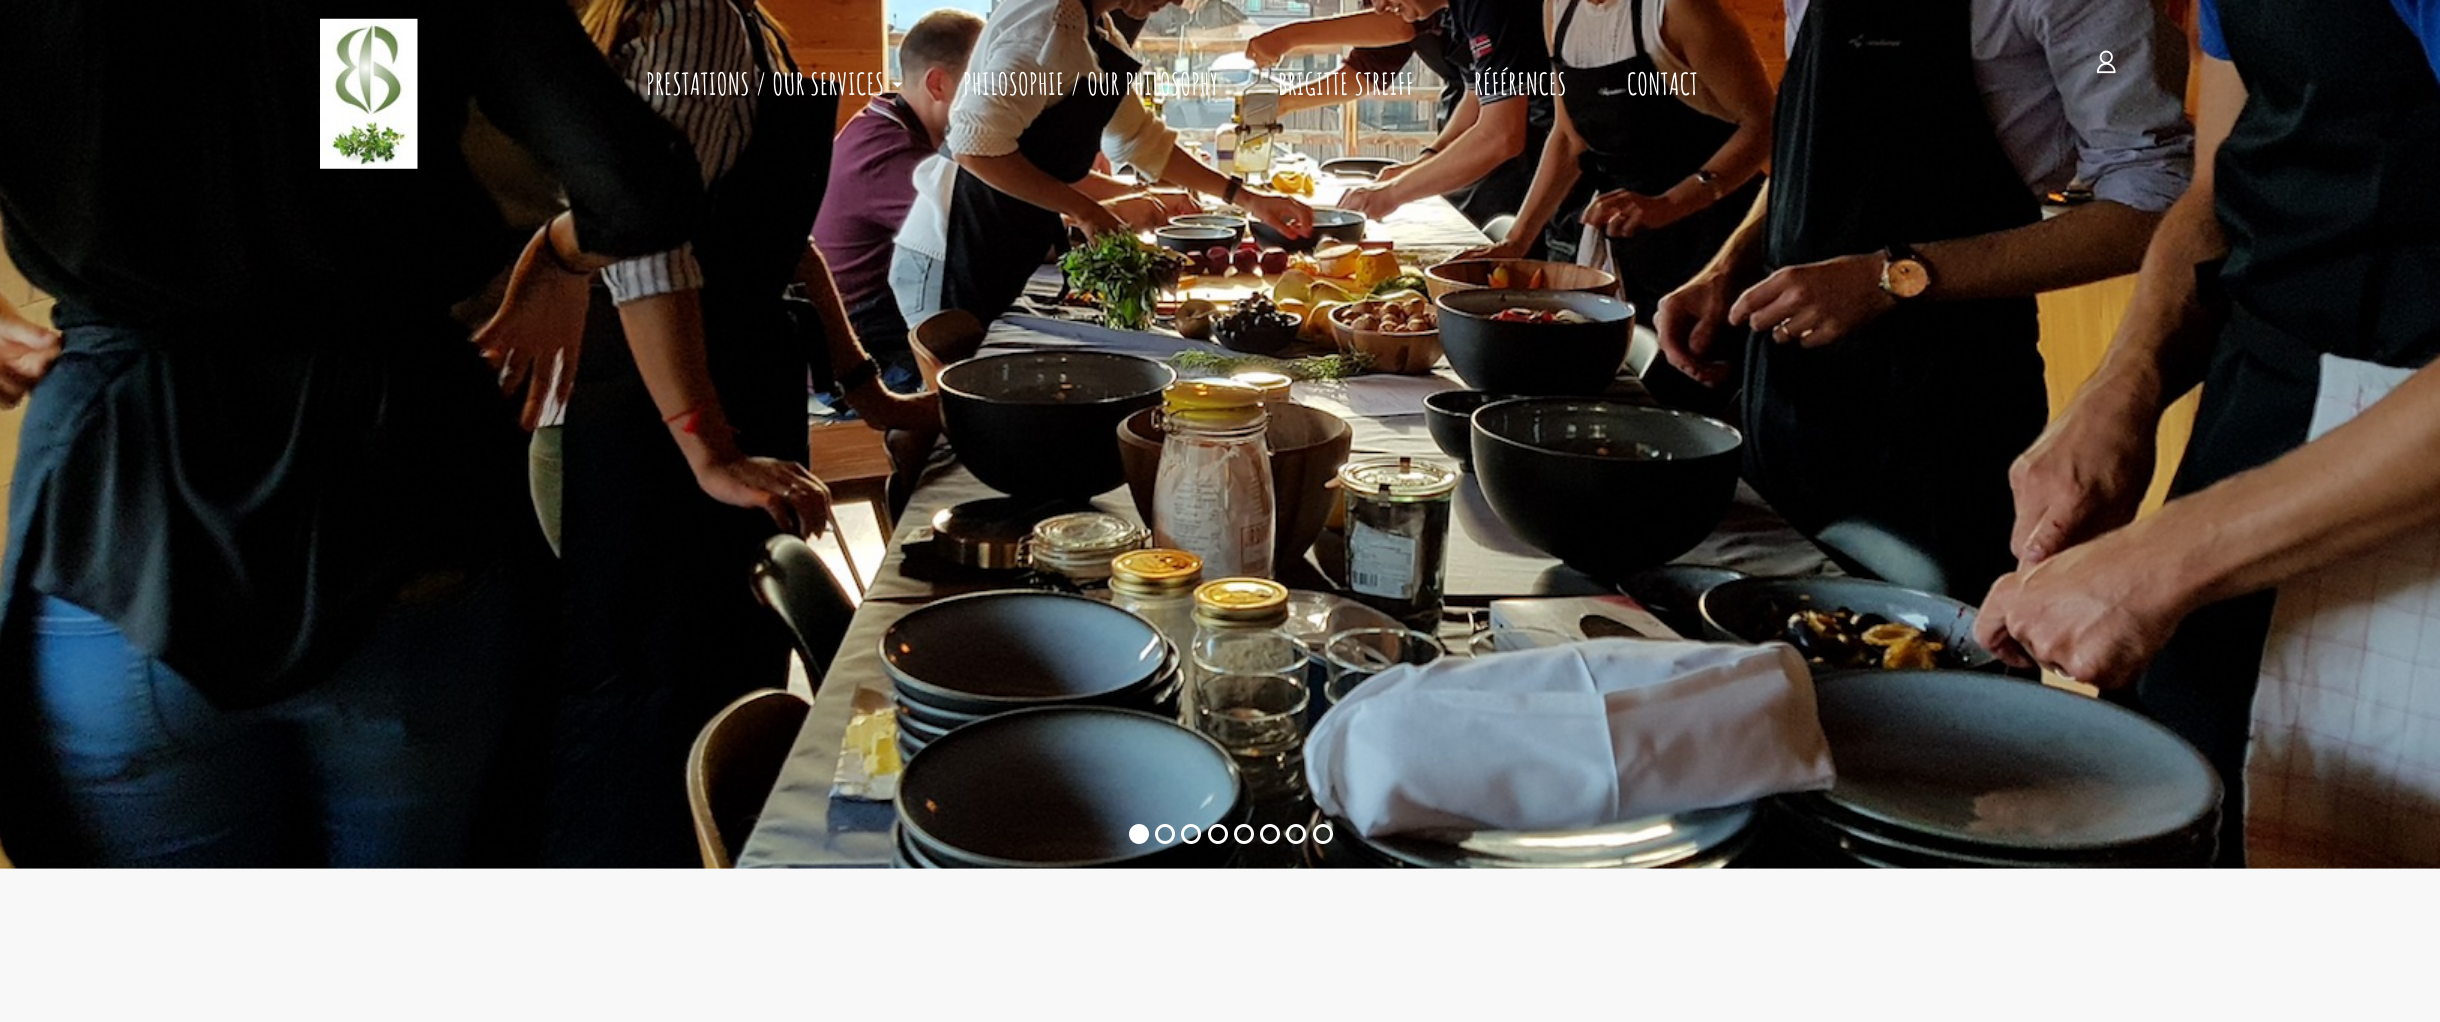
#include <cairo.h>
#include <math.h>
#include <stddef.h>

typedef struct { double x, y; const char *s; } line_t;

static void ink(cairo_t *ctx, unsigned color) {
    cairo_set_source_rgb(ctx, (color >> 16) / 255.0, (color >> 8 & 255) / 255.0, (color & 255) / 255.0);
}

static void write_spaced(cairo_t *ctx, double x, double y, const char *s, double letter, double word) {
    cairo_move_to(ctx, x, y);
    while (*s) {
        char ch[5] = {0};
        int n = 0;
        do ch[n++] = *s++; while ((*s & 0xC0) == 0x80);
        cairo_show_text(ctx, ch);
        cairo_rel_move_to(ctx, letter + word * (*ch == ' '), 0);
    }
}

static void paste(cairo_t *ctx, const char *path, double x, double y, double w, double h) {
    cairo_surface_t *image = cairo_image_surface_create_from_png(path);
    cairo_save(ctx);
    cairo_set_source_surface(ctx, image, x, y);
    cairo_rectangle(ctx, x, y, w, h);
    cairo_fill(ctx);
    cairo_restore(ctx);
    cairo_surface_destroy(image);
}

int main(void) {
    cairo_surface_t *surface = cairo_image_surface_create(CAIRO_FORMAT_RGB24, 2440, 1022);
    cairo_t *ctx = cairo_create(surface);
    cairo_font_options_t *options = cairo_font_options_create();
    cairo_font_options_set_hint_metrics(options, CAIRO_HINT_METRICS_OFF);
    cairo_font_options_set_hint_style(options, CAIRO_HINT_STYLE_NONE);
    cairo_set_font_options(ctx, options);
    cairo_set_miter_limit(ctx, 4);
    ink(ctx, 0xF8F8F8);
    cairo_paint(ctx);
    paste(ctx, "media/1.png", 0, 0, 2440, 869);
    ink(ctx, 0xFFFFFF);
    cairo_arc(ctx, 1139, 834, 8.5, 0, 2 * M_PI);
    cairo_fill_preserve(ctx);
    cairo_set_line_width(ctx, 3);
    cairo_stroke(ctx);
    cairo_arc(ctx, 1165, 834, 8.5, 0, 2 * M_PI);
    cairo_stroke(ctx);
    cairo_arc(ctx, 1191, 834, 8.5, 0, 2 * M_PI);
    cairo_stroke(ctx);
    cairo_arc(ctx, 1218, 834, 8.5, 0, 2 * M_PI);
    cairo_stroke(ctx);
    cairo_arc(ctx, 1244, 834, 8.5, 0, 2 * M_PI);
    cairo_stroke(ctx);
    cairo_arc(ctx, 1270, 834, 8.5, 0, 2 * M_PI);
    cairo_stroke(ctx);
    cairo_arc(ctx, 1296, 834, 8.5, 0, 2 * M_PI);
    cairo_stroke(ctx);
    cairo_arc(ctx, 1323, 834, 8.5, 0, 2 * M_PI);
    cairo_stroke(ctx);
    paste(ctx, "media/2.png", 320, 18, 98, 151);
    paste(ctx, "media/3.png", 2096, 50, 20, 24);
    cairo_select_font_face(ctx, "Amatic SC", CAIRO_FONT_SLANT_NORMAL, CAIRO_FONT_WEIGHT_BOLD);
    cairo_set_font_size(ctx, 30);
    write_spaced(ctx, 646, 95, "PRESTATIONS / OUR SERVICES", 0.25, 0);
    cairo_new_path(ctx);
    cairo_move_to(ctx, 892.5, 82.5);
    cairo_line_to(ctx, 902.5, 82.5);
    cairo_line_to(ctx, 897.5, 87.5);
    cairo_close_path(ctx);
    cairo_fill(ctx);
    {
        static const line_t items[] = {
            {963, 95, "PHILOSOPHIE / OUR PHILOSOPHY"},
            {1278, 95, "BRIGITTE STREIFF"},
            {1474, 95, "RÉFÉRENCES"},
            {1627, 95, "CONTACT"},
        };
        for (size_t i = 0; i < sizeof items / sizeof *items; i++) {
            write_spaced(ctx, items[i].x, items[i].y, items[i].s, 0.25, 0);
        }
    }
    cairo_surface_write_to_png(surface, "image.png");
    cairo_font_options_destroy(options);
    cairo_destroy(ctx);
    cairo_surface_destroy(surface);
    return 0;
}
